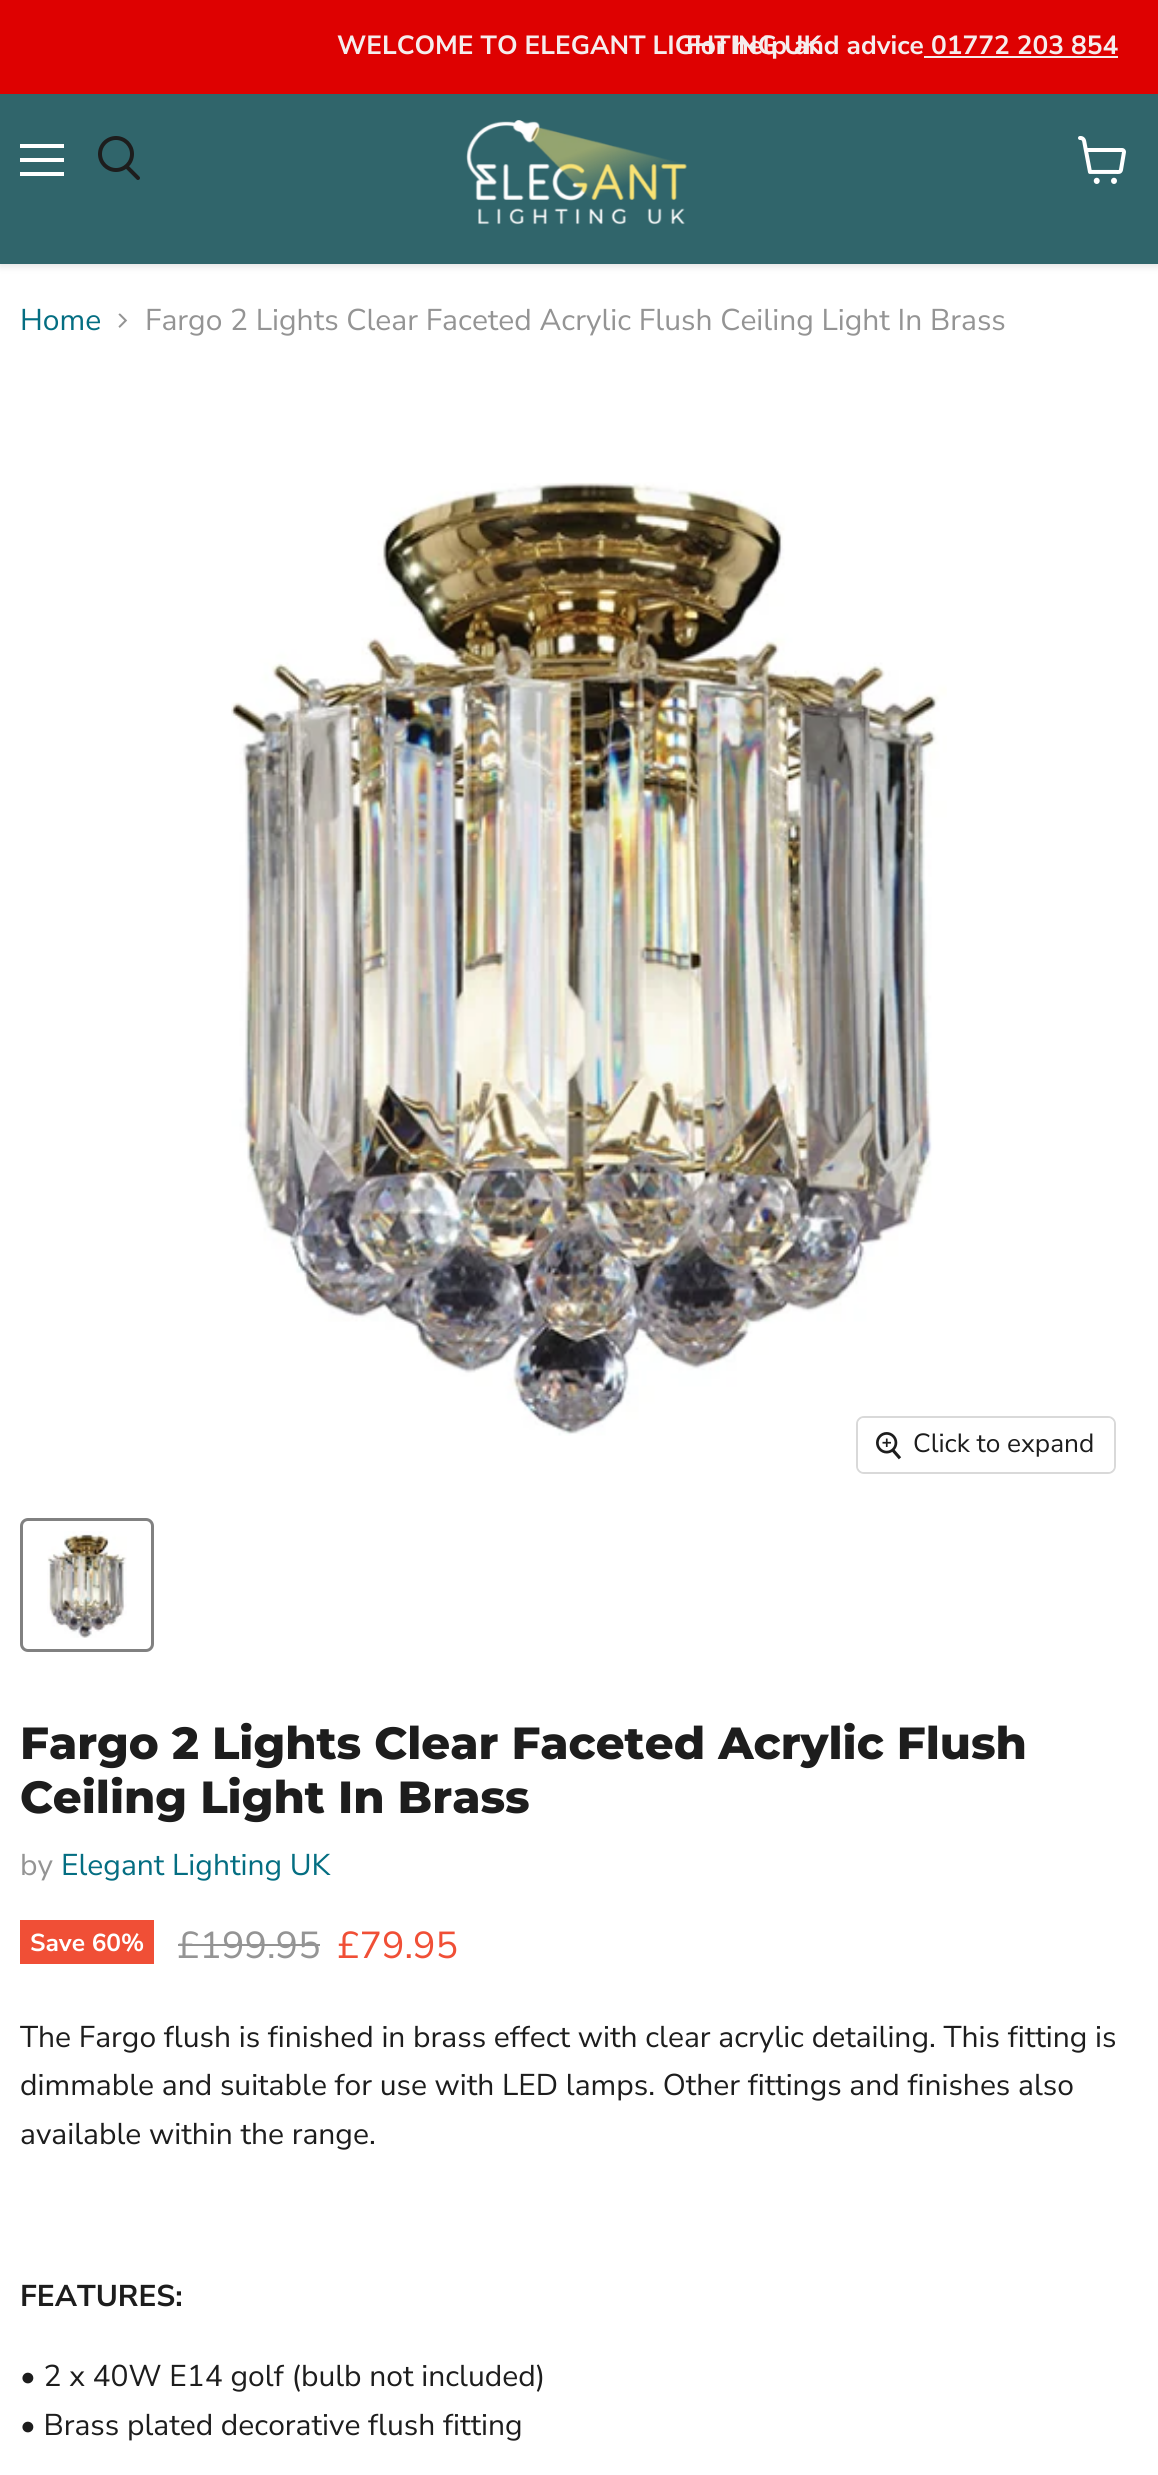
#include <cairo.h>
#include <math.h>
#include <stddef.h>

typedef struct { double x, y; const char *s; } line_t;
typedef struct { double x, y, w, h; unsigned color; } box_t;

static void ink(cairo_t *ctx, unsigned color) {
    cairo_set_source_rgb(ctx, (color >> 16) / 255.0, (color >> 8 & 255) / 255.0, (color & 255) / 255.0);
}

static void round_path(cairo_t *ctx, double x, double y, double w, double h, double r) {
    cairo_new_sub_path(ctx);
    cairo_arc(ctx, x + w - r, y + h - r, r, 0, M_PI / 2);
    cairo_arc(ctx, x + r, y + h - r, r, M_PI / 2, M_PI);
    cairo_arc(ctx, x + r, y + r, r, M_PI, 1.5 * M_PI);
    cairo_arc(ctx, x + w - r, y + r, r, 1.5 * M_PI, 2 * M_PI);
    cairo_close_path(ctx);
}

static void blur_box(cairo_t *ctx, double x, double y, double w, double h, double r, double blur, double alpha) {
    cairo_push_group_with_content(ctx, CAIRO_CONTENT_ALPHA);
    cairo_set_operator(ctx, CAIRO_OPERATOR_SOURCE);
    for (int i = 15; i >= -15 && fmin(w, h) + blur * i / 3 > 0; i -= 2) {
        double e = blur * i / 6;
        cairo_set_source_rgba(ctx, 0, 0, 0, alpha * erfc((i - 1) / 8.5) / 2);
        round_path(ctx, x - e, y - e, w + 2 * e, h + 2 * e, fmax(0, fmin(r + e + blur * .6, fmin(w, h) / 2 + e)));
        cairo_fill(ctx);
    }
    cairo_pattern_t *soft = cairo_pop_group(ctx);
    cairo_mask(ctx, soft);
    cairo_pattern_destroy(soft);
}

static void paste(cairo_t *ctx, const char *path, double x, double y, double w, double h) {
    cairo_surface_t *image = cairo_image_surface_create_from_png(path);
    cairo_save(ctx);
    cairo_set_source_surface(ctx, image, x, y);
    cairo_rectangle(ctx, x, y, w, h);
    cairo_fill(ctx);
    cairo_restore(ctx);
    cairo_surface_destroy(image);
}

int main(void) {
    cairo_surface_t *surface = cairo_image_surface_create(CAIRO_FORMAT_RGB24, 1158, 2475);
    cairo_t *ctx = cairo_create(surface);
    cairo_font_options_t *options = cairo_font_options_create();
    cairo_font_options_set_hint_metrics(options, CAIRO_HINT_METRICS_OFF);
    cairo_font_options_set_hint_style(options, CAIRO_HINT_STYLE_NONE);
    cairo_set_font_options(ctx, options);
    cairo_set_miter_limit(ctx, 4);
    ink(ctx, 0xFFFFFF);
    cairo_paint(ctx);
    ink(ctx, 0x808080);
    blur_box(ctx, 0, 96, 1158, 170, 0, 4, 0.25);
    ink(ctx, 0xDE0101);
    cairo_rectangle(ctx, 0, 0, 1158, 94);
    cairo_fill(ctx);
    cairo_select_font_face(ctx, "Nunito Sans", CAIRO_FONT_SLANT_NORMAL, CAIRO_FONT_WEIGHT_BOLD);
    cairo_set_font_size(ctx, 26.25);
    ink(ctx, 0xF5EDED);
    cairo_move_to(ctx, 337, 54);
    cairo_show_text(ctx, "WELCOME TO ELEGANT LIGHTING UK");
    cairo_move_to(ctx, 686, 54);
    cairo_show_text(ctx, "For help and advice 01772 203 854");
    {
        static const box_t items[] = {
            {924, 56, 194, 2, 0xF5EDED},
            {0, 94, 1158, 170, 0x30656B},
            {20, 144, 44, 4, 0xFFFFFF},
            {20, 158, 44, 4, 0xFFFFFF},
            {20, 172, 44, 4, 0xFFFFFF},
        };
        for (size_t i = 0; i < sizeof items / sizeof *items; i++) {
            ink(ctx, items[i].color);
            cairo_rectangle(ctx, items[i].x, items[i].y, items[i].w, items[i].h);
            cairo_fill(ctx);
        }
    }
    cairo_new_path(ctx);
    cairo_move_to(ctx, 138, 178);
    cairo_line_to(ctx, 127, 167);
    ink(ctx, 0x1D1D1D);
    cairo_set_line_width(ctx, 4);
    cairo_set_line_cap(ctx, CAIRO_LINE_CAP_ROUND);
    cairo_stroke(ctx);
    cairo_arc(ctx, 116, 154, 16, 0, 2 * M_PI);
    cairo_set_line_cap(ctx, CAIRO_LINE_CAP_BUTT);
    cairo_stroke(ctx);
    paste(ctx, "media/1.png", 466, 120, 221, 105);
    paste(ctx, "media/2.png", 1078, 136, 48, 48);
    cairo_select_font_face(ctx, "Nunito Sans", CAIRO_FONT_SLANT_NORMAL, CAIRO_FONT_WEIGHT_NORMAL);
    cairo_set_font_size(ctx, 30);
    ink(ctx, 0x046E82);
    cairo_move_to(ctx, 20, 330);
    cairo_show_text(ctx, "Home");
    paste(ctx, "media/3.png", 118, 313, 10, 15);
    ink(ctx, 0x949494);
    cairo_move_to(ctx, 145, 330);
    cairo_show_text(ctx, "Fargo 2 Lights Clear Faceted Acrylic Flush Ceiling Light In Brass");
    paste(ctx, "media/4.png", 231, 482, 716, 954);
    round_path(ctx, 857, 1417, 258, 56, 7);
    ink(ctx, 0xD9D9D9);
    cairo_set_line_width(ctx, 2);
    cairo_stroke(ctx);
    cairo_set_source_rgba(ctx, 1, 1, 1, 0.9);
    round_path(ctx, 858, 1418, 256, 54, 6);
    cairo_fill(ctx);
    paste(ctx, "media/5.png", 876, 1432, 26, 28);
    cairo_set_font_size(ctx, 26.25);
    ink(ctx, 0x1D1D1D);
    cairo_move_to(ctx, 913, 1452);
    cairo_show_text(ctx, "Click to expand");
    round_path(ctx, 21.5, 1519.5, 131, 131, 6.5);
    ink(ctx, 0x818181);
    cairo_set_line_width(ctx, 3);
    cairo_stroke(ctx);
    paste(ctx, "media/6.png", 47, 1531, 80, 107);
    cairo_select_font_face(ctx, "Montserrat ExtraBold", CAIRO_FONT_SLANT_NORMAL, CAIRO_FONT_WEIGHT_NORMAL);
    cairo_set_font_size(ctx, 45);
    ink(ctx, 0x1D1D1D);
    cairo_move_to(ctx, 20, 1759);
    cairo_show_text(ctx, "Fargo 2 Lights Clear Faceted Acrylic Flush");
    cairo_move_to(ctx, 20, 1813);
    cairo_show_text(ctx, "Ceiling Light In Brass");
    cairo_select_font_face(ctx, "Nunito Sans", CAIRO_FONT_SLANT_NORMAL, CAIRO_FONT_WEIGHT_NORMAL);
    cairo_set_font_size(ctx, 30);
    ink(ctx, 0x949494);
    cairo_move_to(ctx, 20, 1875);
    cairo_show_text(ctx, "by");
    ink(ctx, 0x046E82);
    cairo_move_to(ctx, 61, 1875);
    cairo_show_text(ctx, "Elegant Lighting UK");
    ink(ctx, 0xF04F36);
    cairo_rectangle(ctx, 20, 1920, 134, 44);
    cairo_fill(ctx);
    cairo_select_font_face(ctx, "Nunito Sans", CAIRO_FONT_SLANT_NORMAL, CAIRO_FONT_WEIGHT_BOLD);
    cairo_set_font_size(ctx, 24.5);
    ink(ctx, 0xFFFFFF);
    cairo_move_to(ctx, 30, 1951);
    cairo_show_text(ctx, "Save 60%");
    cairo_select_font_face(ctx, "Nunito Sans", CAIRO_FONT_SLANT_NORMAL, CAIRO_FONT_WEIGHT_NORMAL);
    cairo_set_font_size(ctx, 37.5);
    ink(ctx, 0x949494);
    cairo_move_to(ctx, 177, 1958);
    cairo_show_text(ctx, "£199.95");
    cairo_rectangle(ctx, 178, 1944, 142, 2);
    cairo_fill(ctx);
    ink(ctx, 0xF04F36);
    cairo_move_to(ctx, 337, 1958);
    cairo_show_text(ctx, "£79.95");
    cairo_set_font_size(ctx, 30);
    ink(ctx, 0x1D1D1D);
    {
        static const line_t items[] = {
            {20, 2047, "The Fargo flush is finished in brass effect with clear acrylic detailing. This fitting is"},
            {20, 2095, "dimmable and suitable for use with LED lamps. Other fittings and finishes also"},
            {20, 2144, "available within the range."},
        };
        for (size_t i = 0; i < sizeof items / sizeof *items; i++) {
            cairo_move_to(ctx, items[i].x, items[i].y);
            cairo_show_text(ctx, items[i].s);
        }
    }
    cairo_select_font_face(ctx, "Nunito Sans", CAIRO_FONT_SLANT_NORMAL, CAIRO_FONT_WEIGHT_BOLD);
    cairo_move_to(ctx, 20, 2306);
    cairo_show_text(ctx, "FEATURES:");
    cairo_select_font_face(ctx, "Nunito Sans", CAIRO_FONT_SLANT_NORMAL, CAIRO_FONT_WEIGHT_NORMAL);
    cairo_move_to(ctx, 20, 2386);
    cairo_show_text(ctx, "• 2 x 40W E14 golf (bulb not included)");
    cairo_move_to(ctx, 20, 2435);
    cairo_show_text(ctx, "• Brass plated decorative flush fitting");
    cairo_surface_write_to_png(surface, "image.png");
    cairo_font_options_destroy(options);
    cairo_destroy(ctx);
    cairo_surface_destroy(surface);
    return 0;
}
